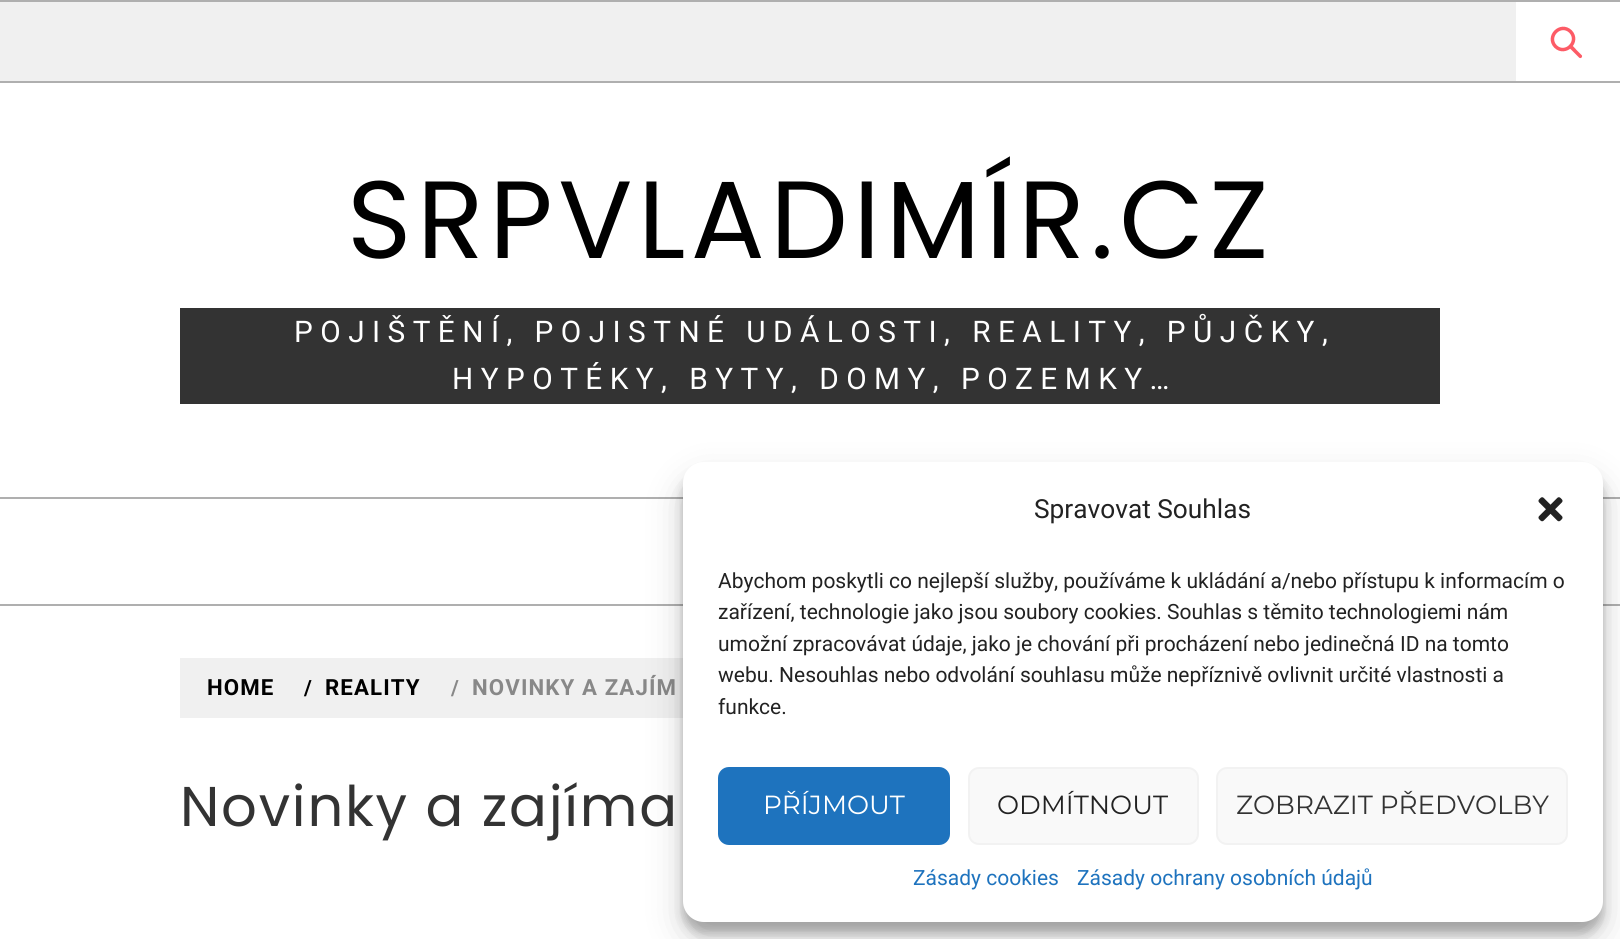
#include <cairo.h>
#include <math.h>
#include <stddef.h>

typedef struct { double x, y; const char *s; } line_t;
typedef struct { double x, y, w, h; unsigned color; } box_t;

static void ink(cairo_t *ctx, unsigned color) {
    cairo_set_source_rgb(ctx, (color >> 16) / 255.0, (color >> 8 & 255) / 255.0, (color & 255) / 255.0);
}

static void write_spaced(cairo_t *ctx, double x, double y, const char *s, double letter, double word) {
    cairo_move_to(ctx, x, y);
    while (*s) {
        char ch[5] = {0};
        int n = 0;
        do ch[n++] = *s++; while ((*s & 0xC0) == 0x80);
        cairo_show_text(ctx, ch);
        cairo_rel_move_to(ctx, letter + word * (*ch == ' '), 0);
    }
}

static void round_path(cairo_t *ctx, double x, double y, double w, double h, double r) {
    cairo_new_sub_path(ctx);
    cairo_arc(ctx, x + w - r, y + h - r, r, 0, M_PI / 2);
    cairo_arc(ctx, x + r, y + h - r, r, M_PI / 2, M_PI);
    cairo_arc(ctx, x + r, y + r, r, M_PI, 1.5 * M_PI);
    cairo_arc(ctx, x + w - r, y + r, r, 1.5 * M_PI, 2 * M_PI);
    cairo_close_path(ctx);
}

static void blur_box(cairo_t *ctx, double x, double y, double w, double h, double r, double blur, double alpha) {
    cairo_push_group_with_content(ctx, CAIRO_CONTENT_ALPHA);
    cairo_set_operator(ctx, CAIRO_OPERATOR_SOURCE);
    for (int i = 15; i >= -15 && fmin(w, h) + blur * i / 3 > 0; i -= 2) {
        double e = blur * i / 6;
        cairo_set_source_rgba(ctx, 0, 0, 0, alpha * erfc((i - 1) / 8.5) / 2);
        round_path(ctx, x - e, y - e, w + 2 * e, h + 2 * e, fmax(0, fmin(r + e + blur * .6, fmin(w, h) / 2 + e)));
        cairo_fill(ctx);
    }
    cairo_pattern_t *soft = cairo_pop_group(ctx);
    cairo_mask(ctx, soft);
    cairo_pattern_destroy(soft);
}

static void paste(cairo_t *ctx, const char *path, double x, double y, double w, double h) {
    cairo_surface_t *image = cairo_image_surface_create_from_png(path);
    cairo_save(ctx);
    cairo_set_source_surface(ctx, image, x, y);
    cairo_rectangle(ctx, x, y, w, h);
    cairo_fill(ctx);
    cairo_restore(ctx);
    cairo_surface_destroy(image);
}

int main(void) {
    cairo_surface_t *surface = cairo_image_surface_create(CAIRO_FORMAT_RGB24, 1620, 939);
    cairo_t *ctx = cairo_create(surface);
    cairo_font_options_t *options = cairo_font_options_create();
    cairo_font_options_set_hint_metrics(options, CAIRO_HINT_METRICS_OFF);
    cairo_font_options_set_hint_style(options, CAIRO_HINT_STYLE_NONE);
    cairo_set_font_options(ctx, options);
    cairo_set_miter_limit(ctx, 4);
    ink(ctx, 0xFFFFFF);
    cairo_paint(ctx);
    {
        static const box_t items[] = {
            {0, 2, 1516, 79, 0xF0F0F0},
            {0, 0, 1620, 2, 0xAFAFAF},
            {0, 81, 1620, 2, 0xAFAFAF},
        };
        for (size_t i = 0; i < sizeof items / sizeof *items; i++) {
            ink(ctx, items[i].color);
            cairo_rectangle(ctx, items[i].x, items[i].y, items[i].w, items[i].h);
            cairo_fill(ctx);
        }
    }
    ink(ctx, 0xFD5B66);
    cairo_new_path(ctx);
    cairo_move_to(ctx, 1579, 57.5);
    cairo_line_to(ctx, 1571, 49.5);
    cairo_curve_to(ctx, 1570, 48.5, 1568.5, 47.5, 1569, 46);
    cairo_curve_to(ctx, 1570, 41.5, 1576.5, 50, 1576.5, 50);
    cairo_line_to(ctx, 1582, 55.5);
    cairo_curve_to(ctx, 1582.5, 57.5, 1580.5, 59, 1579, 57.5);
    cairo_close_path(ctx);
    cairo_fill(ctx);
    cairo_new_path(ctx);
    cairo_move_to(ctx, 1555.5, 46.5);
    cairo_curve_to(ctx, 1546, 36.5, 1560.5, 22, 1570.5, 31.5);
    cairo_curve_to(ctx, 1580, 41.5, 1565.5, 56, 1555.5, 46.5);
    cairo_close_path(ctx);
    cairo_set_line_width(ctx, 3.5);
    cairo_stroke(ctx);
    cairo_select_font_face(ctx, "Poppins", CAIRO_FONT_SLANT_NORMAL, CAIRO_FONT_WEIGHT_NORMAL);
    cairo_set_font_size(ctx, 109.75);
    ink(ctx, 0x000000);
    write_spaced(ctx, 347, 258, "SRPVLADIMÍR.CZ", 5.5, 0);
    ink(ctx, 0x333333);
    cairo_rectangle(ctx, 180, 308, 1260, 96);
    cairo_fill(ctx);
    cairo_select_font_face(ctx, "Roboto", CAIRO_FONT_SLANT_NORMAL, CAIRO_FONT_WEIGHT_NORMAL);
    cairo_set_font_size(ctx, 29.75);
    ink(ctx, 0xFFFFFF);
    write_spaced(ctx, 294, 342, "POJIŠTĚNÍ, POJISTNÉ UDÁLOSTI, REALITY, PŮJČKY,", 7.45, 0);
    write_spaced(ctx, 452, 389, "HYPOTÉKY, BYTY, DOMY, POZEMKY…", 7.45, 0);
    {
        static const box_t items[] = {
            {0, 497, 1620, 2, 0xAFAFAF},
            {0, 604, 1620, 2, 0xAFAFAF},
            {180, 658, 503, 60, 0xF0F0F0},
        };
        for (size_t i = 0; i < sizeof items / sizeof *items; i++) {
            ink(ctx, items[i].color);
            cairo_rectangle(ctx, items[i].x, items[i].y, items[i].w, items[i].h);
            cairo_fill(ctx);
        }
    }
    cairo_select_font_face(ctx, "Roboto", CAIRO_FONT_SLANT_NORMAL, CAIRO_FONT_WEIGHT_BOLD);
    cairo_set_font_size(ctx, 22.25);
    ink(ctx, 0x000000);
    write_spaced(ctx, 207, 695, "HOME", 1.1, 0);
    cairo_set_font_size(ctx, 21);
    write_spaced(ctx, 304, 695, "/", 1.1, 0);
    cairo_set_font_size(ctx, 22.25);
    write_spaced(ctx, 325, 695, "REALITY", 1.1, 0);
    cairo_set_font_size(ctx, 21);
    ink(ctx, 0x888888);
    write_spaced(ctx, 451, 695, "/", 1.1, 0);
    cairo_set_font_size(ctx, 22.25);
    write_spaced(ctx, 472, 695, "NOVINKY A ZAJÍM", 1.1, 0);
    cairo_select_font_face(ctx, "Poppins", CAIRO_FONT_SLANT_NORMAL, CAIRO_FONT_WEIGHT_NORMAL);
    cairo_set_font_size(ctx, 56);
    ink(ctx, 0x333333);
    write_spaced(ctx, 180, 826, "Novinky a zajíma", 1.75, 0);
    ink(ctx, 0x000000);
    blur_box(ctx, 683, 473, 920, 460, 21, 5, 0.23);
    blur_box(ctx, 683, 480, 920, 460, 21, 17.5, 0.19);
    ink(ctx, 0xFFFFFF);
    round_path(ctx, 683, 462, 920, 460, 21);
    cairo_fill(ctx);
    cairo_select_font_face(ctx, "Roboto", CAIRO_FONT_SLANT_NORMAL, CAIRO_FONT_WEIGHT_NORMAL);
    cairo_set_font_size(ctx, 26.25);
    ink(ctx, 0x222222);
    cairo_move_to(ctx, 1034, 518);
    cairo_show_text(ctx, "Spravovat Souhlas");
    paste(ctx, "media/1.png", 1538, 497, 25, 25);
    cairo_set_font_size(ctx, 21);
    {
        static const line_t items[] = {
            {718, 588, "Abychom poskytli co nejlepší služby, používáme k ukládání a/nebo přístupu k informacím o"},
            {718, 619, "zařízení, technologie jako jsou soubory cookies. Souhlas s těmito technologiemi nám"},
            {718, 651, "umožní zpracovávat údaje, jako je chování při procházení nebo jedinečná ID na tomto"},
            {718, 682, "webu. Nesouhlas nebo odvolání souhlasu může nepříznivě ovlivnit určité vlastnosti a"},
            {718, 714, "funkce."},
        };
        for (size_t i = 0; i < sizeof items / sizeof *items; i++) {
            cairo_move_to(ctx, items[i].x, items[i].y);
            cairo_show_text(ctx, items[i].s);
        }
    }
    ink(ctx, 0x1E73BE);
    round_path(ctx, 719, 768, 230, 76, 10);
    cairo_fill_preserve(ctx);
    cairo_set_line_width(ctx, 2);
    cairo_stroke(ctx);
    cairo_select_font_face(ctx, "Montserrat Thin", CAIRO_FONT_SLANT_NORMAL, CAIRO_FONT_WEIGHT_NORMAL);
    cairo_set_font_size(ctx, 26.25);
    ink(ctx, 0xFFFFFF);
    cairo_move_to(ctx, 763, 814);
    cairo_show_text(ctx, "PŘÍJMOUT");
    ink(ctx, 0xF9F9F9);
    round_path(ctx, 969, 768, 229, 76, 10);
    cairo_fill_preserve(ctx);
    ink(ctx, 0xF2F2F2);
    cairo_stroke(ctx);
    ink(ctx, 0x222222);
    cairo_move_to(ctx, 997, 814);
    cairo_show_text(ctx, "ODMÍTNOUT");
    ink(ctx, 0xF9F9F9);
    round_path(ctx, 1217, 768, 350, 76, 10);
    cairo_fill_preserve(ctx);
    ink(ctx, 0xF2F2F2);
    cairo_stroke(ctx);
    ink(ctx, 0x333333);
    cairo_move_to(ctx, 1236, 814);
    cairo_show_text(ctx, "ZOBRAZIT PŘEDVOLBY");
    cairo_select_font_face(ctx, "Roboto", CAIRO_FONT_SLANT_NORMAL, CAIRO_FONT_WEIGHT_NORMAL);
    cairo_set_font_size(ctx, 21);
    ink(ctx, 0x1E73BE);
    cairo_move_to(ctx, 913, 885);
    cairo_show_text(ctx, "Zásady cookies");
    cairo_move_to(ctx, 1077, 885);
    cairo_show_text(ctx, "Zásady ochrany osobních údajů");
    cairo_surface_write_to_png(surface, "image.png");
    cairo_font_options_destroy(options);
    cairo_destroy(ctx);
    cairo_surface_destroy(surface);
    return 0;
}
